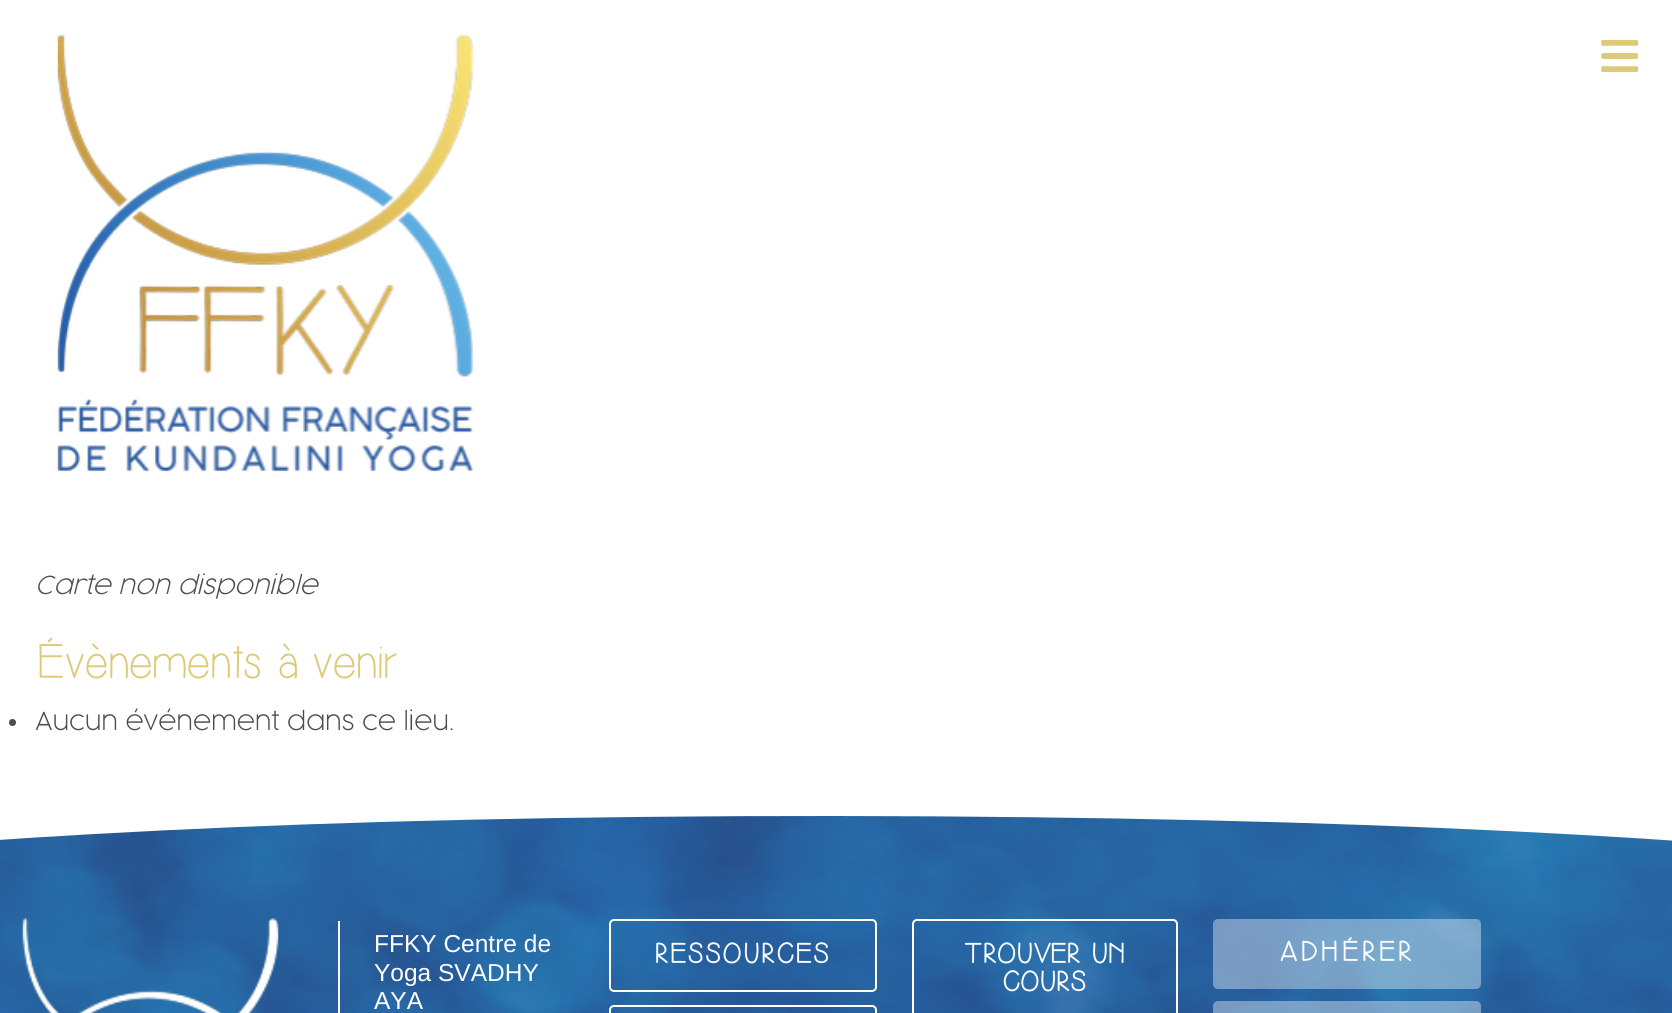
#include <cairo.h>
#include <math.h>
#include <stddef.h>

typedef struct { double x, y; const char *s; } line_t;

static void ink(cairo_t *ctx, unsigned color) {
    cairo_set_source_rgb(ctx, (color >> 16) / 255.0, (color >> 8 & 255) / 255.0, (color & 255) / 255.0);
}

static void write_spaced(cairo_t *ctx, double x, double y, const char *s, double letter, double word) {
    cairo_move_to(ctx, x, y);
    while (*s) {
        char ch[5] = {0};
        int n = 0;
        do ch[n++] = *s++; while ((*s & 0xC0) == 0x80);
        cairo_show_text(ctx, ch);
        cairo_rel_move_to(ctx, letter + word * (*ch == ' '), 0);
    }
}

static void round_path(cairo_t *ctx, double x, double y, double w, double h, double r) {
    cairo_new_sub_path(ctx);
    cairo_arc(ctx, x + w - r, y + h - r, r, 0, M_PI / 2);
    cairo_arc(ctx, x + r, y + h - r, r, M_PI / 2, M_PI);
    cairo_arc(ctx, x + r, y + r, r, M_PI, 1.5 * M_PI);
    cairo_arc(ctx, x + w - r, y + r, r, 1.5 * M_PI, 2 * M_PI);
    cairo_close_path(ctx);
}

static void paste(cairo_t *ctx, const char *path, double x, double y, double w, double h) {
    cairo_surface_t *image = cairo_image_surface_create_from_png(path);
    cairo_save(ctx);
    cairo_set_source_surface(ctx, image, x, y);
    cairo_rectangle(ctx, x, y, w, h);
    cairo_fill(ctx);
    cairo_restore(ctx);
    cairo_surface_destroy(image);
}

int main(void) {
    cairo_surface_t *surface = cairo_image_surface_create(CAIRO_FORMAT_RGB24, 1672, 1013);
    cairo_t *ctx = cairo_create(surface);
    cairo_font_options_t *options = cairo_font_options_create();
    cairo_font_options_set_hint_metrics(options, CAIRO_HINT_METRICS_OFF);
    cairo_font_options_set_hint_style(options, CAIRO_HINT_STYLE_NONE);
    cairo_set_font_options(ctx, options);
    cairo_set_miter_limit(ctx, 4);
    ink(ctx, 0xFFFFFF);
    cairo_paint(ctx);
    paste(ctx, "media/1.png", 57, 35, 416, 437);
    paste(ctx, "media/2.png", 1601, 39, 37, 34);
    cairo_select_font_face(ctx, "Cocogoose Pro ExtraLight", CAIRO_FONT_SLANT_ITALIC, CAIRO_FONT_WEIGHT_NORMAL);
    cairo_set_font_size(ctx, 24.5);
    ink(ctx, 0x4D4D4D);
    cairo_move_to(ctx, 35, 594);
    cairo_show_text(ctx, "Carte non disponible");
    cairo_select_font_face(ctx, "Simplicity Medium", CAIRO_FONT_SLANT_NORMAL, CAIRO_FONT_WEIGHT_NORMAL);
    cairo_set_font_size(ctx, 49);
    ink(ctx, 0xDDCA79);
    cairo_move_to(ctx, 35, 678);
    cairo_show_text(ctx, "Évènements à venir");
    ink(ctx, 0x4D4D4D);
    cairo_new_path(ctx);
    cairo_arc(ctx, 12.5, 722.5, 3.5, 0, 2 * M_PI);
    cairo_fill(ctx);
    cairo_select_font_face(ctx, "Cocogoose Pro ExtraLight", CAIRO_FONT_SLANT_NORMAL, CAIRO_FONT_WEIGHT_NORMAL);
    cairo_set_font_size(ctx, 24.5);
    cairo_move_to(ctx, 35, 730);
    cairo_show_text(ctx, "Aucun événement dans ce lieu.");
    paste(ctx, "media/3.png", 0, 816, 1672, 197);
    ink(ctx, 0xFFFFFF);
    cairo_new_path(ctx);
    cairo_move_to(ctx, 836, 816);
    cairo_curve_to(ctx, 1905, 817, 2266, 908, 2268, 932);
    cairo_line_to(ctx, 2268, 813);
    cairo_line_to(ctx, -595, 813);
    cairo_line_to(ctx, -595, 931);
    cairo_curve_to(ctx, -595, 909, -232, 815, 836, 816);
    cairo_close_path(ctx);
    cairo_fill(ctx);
    paste(ctx, "media/4.png", 22, 918, 257, 95);
    cairo_rectangle(ctx, 338, 921, 2, 92);
    cairo_fill(ctx);
    cairo_select_font_face(ctx, "Liberation Sans", CAIRO_FONT_SLANT_NORMAL, CAIRO_FONT_WEIGHT_NORMAL);
    {
        static const line_t items[] = {
            {374, 952, "FFKY Centre de"},
            {374, 981, "Yoga SVADHY"},
            {374, 1009, "AYA"},
        };
        for (size_t i = 0; i < sizeof items / sizeof *items; i++) {
            cairo_move_to(ctx, items[i].x, items[i].y);
            cairo_show_text(ctx, items[i].s);
        }
    }
    round_path(ctx, 610, 920, 266, 71, 4);
    cairo_stroke(ctx);
    cairo_select_font_face(ctx, "Simplicity", CAIRO_FONT_SLANT_NORMAL, CAIRO_FONT_WEIGHT_BOLD);
    cairo_set_font_size(ctx, 28);
    write_spaced(ctx, 655, 963, "RESSOURCES", 3.5, 0);
    round_path(ctx, 610, 1006, 266, 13, 4);
    cairo_stroke(ctx);
    round_path(ctx, 913, 920, 264, 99, 4);
    cairo_stroke(ctx);
    write_spaced(ctx, 964, 963, "TROUVER UN", 2.1, 0);
    write_spaced(ctx, 1003, 991, "COURS", 2.1, 0);
    cairo_set_source_rgba(ctx, 1, 1, 1, 0.38);
    round_path(ctx, 1213, 919, 268, 70, 5);
    cairo_fill(ctx);
    ink(ctx, 0xFFFFFF);
    write_spaced(ctx, 1280, 961, "ADHÉRER", 5, 0);
    cairo_set_source_rgba(ctx, 1, 1, 1, 0.38);
    round_path(ctx, 1213, 1001, 268, 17, 5);
    cairo_fill(ctx);
    cairo_surface_write_to_png(surface, "image.png");
    cairo_font_options_destroy(options);
    cairo_destroy(ctx);
    cairo_surface_destroy(surface);
    return 0;
}
